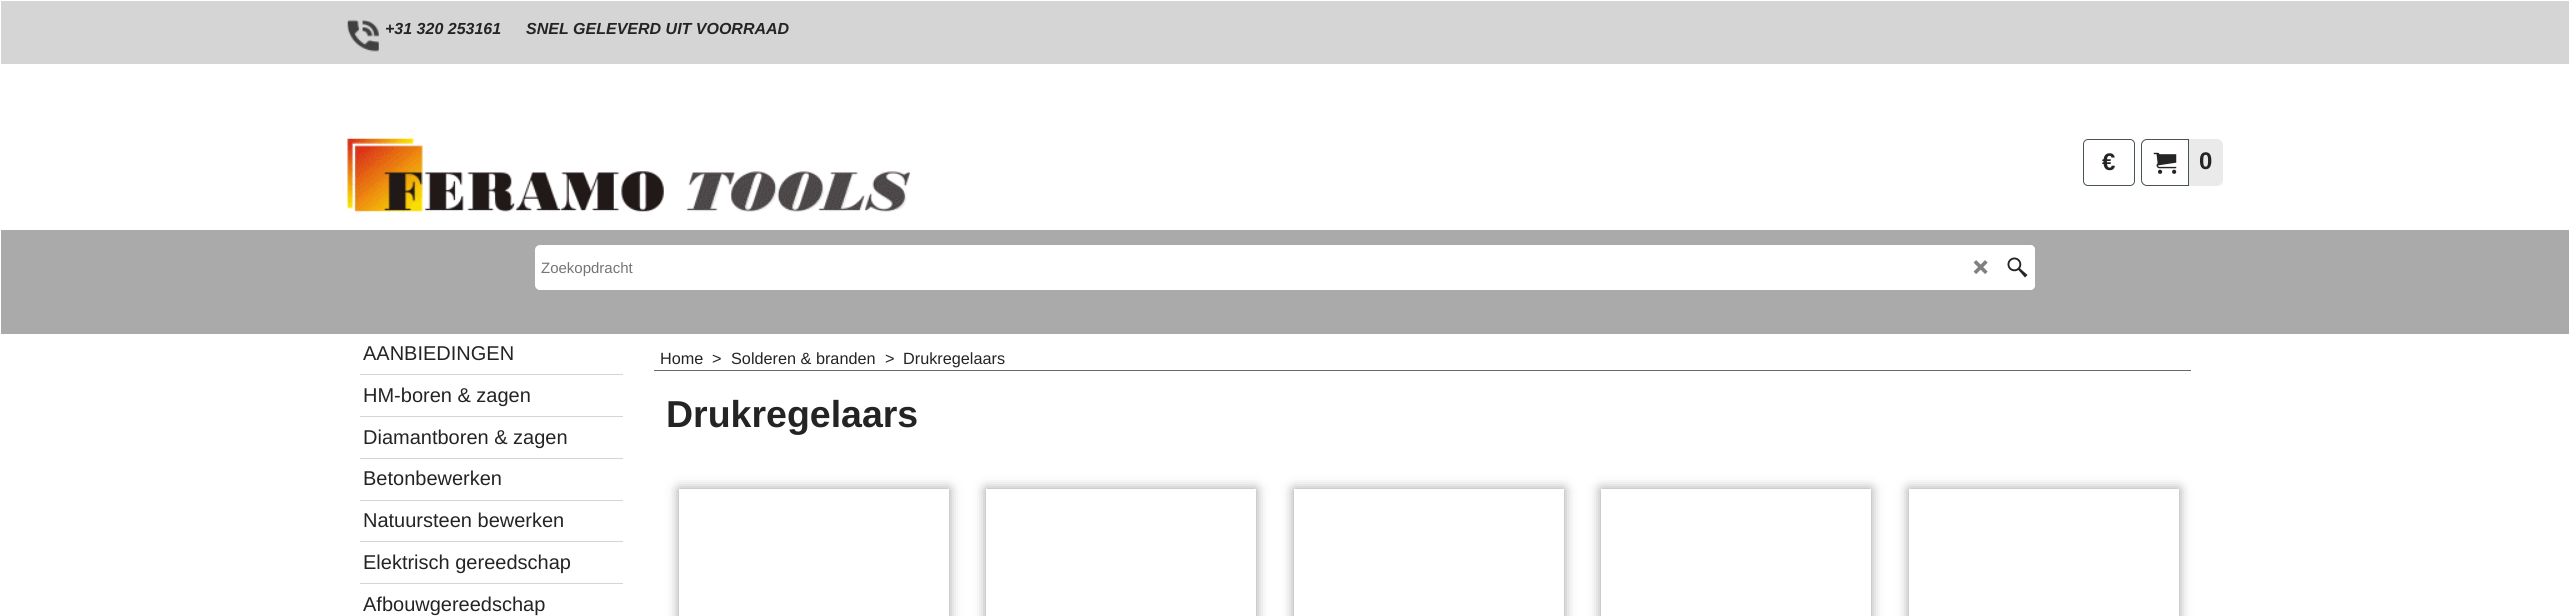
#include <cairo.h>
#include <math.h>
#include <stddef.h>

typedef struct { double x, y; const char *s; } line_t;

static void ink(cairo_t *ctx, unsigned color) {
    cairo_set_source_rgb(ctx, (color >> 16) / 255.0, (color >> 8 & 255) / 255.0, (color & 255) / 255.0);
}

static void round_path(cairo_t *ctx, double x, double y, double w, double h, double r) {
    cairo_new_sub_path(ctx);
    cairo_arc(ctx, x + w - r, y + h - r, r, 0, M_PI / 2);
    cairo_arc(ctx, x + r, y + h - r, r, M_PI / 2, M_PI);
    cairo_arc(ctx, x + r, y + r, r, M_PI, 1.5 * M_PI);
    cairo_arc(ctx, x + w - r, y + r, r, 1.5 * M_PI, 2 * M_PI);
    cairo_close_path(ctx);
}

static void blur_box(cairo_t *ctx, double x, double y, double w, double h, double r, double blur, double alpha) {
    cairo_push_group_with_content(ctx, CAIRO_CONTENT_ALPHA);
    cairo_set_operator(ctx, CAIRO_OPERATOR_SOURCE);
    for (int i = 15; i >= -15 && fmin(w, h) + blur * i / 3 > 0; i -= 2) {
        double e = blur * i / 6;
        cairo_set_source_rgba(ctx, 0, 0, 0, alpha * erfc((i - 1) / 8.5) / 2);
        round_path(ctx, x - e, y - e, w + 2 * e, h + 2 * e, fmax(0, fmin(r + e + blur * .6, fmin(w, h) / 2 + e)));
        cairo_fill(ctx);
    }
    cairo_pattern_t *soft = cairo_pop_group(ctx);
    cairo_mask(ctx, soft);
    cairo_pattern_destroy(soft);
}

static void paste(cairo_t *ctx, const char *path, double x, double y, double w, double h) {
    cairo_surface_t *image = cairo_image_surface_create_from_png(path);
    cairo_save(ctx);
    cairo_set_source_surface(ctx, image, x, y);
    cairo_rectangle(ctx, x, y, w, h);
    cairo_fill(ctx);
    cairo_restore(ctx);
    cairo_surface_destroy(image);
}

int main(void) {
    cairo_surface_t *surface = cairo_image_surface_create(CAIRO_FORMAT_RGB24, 2569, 616);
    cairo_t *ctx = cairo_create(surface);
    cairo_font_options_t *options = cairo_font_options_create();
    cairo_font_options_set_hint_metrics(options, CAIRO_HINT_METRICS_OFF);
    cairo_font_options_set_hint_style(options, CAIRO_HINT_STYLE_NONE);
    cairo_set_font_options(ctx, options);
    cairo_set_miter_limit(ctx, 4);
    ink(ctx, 0xFFFFFF);
    cairo_paint(ctx);
    ink(ctx, 0xD5D5D5);
    cairo_rectangle(ctx, 1, 1, 2568, 63);
    cairo_fill(ctx);
    paste(ctx, "media/1.png", 347, 19, 32, 33);
    cairo_select_font_face(ctx, "Liberation Sans", CAIRO_FONT_SLANT_ITALIC, CAIRO_FONT_WEIGHT_BOLD);
    cairo_set_font_size(ctx, 16);
    ink(ctx, 0x242424);
    cairo_move_to(ctx, 385, 34);
    cairo_show_text(ctx, "+31 320 253161");
    cairo_move_to(ctx, 526, 34);
    cairo_show_text(ctx, "SNEL GELEVERD UIT VOORRAAD");
    paste(ctx, "media/2.png", 347, 138, 563, 74);
    round_path(ctx, 2083.5, 139.5, 51, 46, 4.5);
    ink(ctx, 0x48554D);
    cairo_set_line_width(ctx, 1);
    cairo_stroke(ctx);
    cairo_select_font_face(ctx, "Liberation Sans", CAIRO_FONT_SLANT_NORMAL, CAIRO_FONT_WEIGHT_BOLD);
    cairo_set_font_size(ctx, 24);
    ink(ctx, 0x242424);
    cairo_move_to(ctx, 2102, 170);
    cairo_show_text(ctx, "€");
    ink(ctx, 0xEAEAEA);
    round_path(ctx, 2141, 139, 82, 47, 6);
    cairo_fill(ctx);
    ink(ctx, 0xFFFFFF);
    cairo_new_path(ctx);
    cairo_move_to(ctx, 2147, 139.5);
    cairo_line_to(ctx, 2188.5, 139.5);
    cairo_line_to(ctx, 2188.5, 185.5);
    cairo_line_to(ctx, 2147, 185.5);
    cairo_curve_to(ctx, 2144, 185.5, 2141.5, 183, 2141.5, 180);
    cairo_line_to(ctx, 2141.5, 145);
    cairo_curve_to(ctx, 2141.5, 142, 2144, 139.5, 2147, 139.5);
    cairo_close_path(ctx);
    cairo_fill_preserve(ctx);
    ink(ctx, 0x48554D);
    cairo_stroke(ctx);
    paste(ctx, "media/3.png", 2153, 152, 24, 22);
    ink(ctx, 0x242424);
    cairo_move_to(ctx, 2199, 169);
    cairo_show_text(ctx, "0");
    ink(ctx, 0xAAAAAA);
    cairo_rectangle(ctx, 1, 230, 2568, 104);
    cairo_fill(ctx);
    ink(ctx, 0xFFFFFF);
    round_path(ctx, 535, 245, 1500, 45, 5);
    cairo_fill(ctx);
    cairo_select_font_face(ctx, "Liberation Sans", CAIRO_FONT_SLANT_NORMAL, CAIRO_FONT_WEIGHT_NORMAL);
    cairo_set_font_size(ctx, 15);
    ink(ctx, 0x757575);
    cairo_move_to(ctx, 541, 273);
    cairo_show_text(ctx, "Zoekopdracht");
    paste(ctx, "media/4.png", 1973, 260, 15, 14);
    ink(ctx, 0xFFFFFF);
    cairo_new_path(ctx);
    cairo_move_to(ctx, 1999, 245);
    cairo_line_to(ctx, 2030, 245);
    cairo_curve_to(ctx, 2033, 245, 2035, 247, 2035, 250);
    cairo_line_to(ctx, 2035, 285);
    cairo_curve_to(ctx, 2035, 288, 2033, 290, 2030, 290);
    cairo_line_to(ctx, 1999, 290);
    cairo_close_path(ctx);
    cairo_fill(ctx);
    paste(ctx, "media/5.png", 2007, 257, 21, 21);
    ink(ctx, 0xD5D5D5);
    cairo_rectangle(ctx, 360, 374, 263, 1);
    cairo_fill(ctx);
    cairo_set_font_size(ctx, 20);
    ink(ctx, 0x242424);
    cairo_move_to(ctx, 363, 360);
    cairo_show_text(ctx, "AANBIEDINGEN");
    ink(ctx, 0xD5D5D5);
    cairo_rectangle(ctx, 360, 416, 263, 1);
    cairo_fill(ctx);
    ink(ctx, 0x242424);
    cairo_move_to(ctx, 363, 402);
    cairo_show_text(ctx, "HM-boren & zagen");
    ink(ctx, 0xD5D5D5);
    cairo_rectangle(ctx, 360, 458, 263, 1);
    cairo_fill(ctx);
    ink(ctx, 0x242424);
    cairo_move_to(ctx, 363, 444);
    cairo_show_text(ctx, "Diamantboren & zagen");
    ink(ctx, 0xD5D5D5);
    cairo_rectangle(ctx, 360, 500, 263, 1);
    cairo_fill(ctx);
    ink(ctx, 0x242424);
    cairo_move_to(ctx, 363, 485);
    cairo_show_text(ctx, "Betonbewerken");
    ink(ctx, 0xD5D5D5);
    cairo_rectangle(ctx, 360, 541, 263, 1);
    cairo_fill(ctx);
    ink(ctx, 0x242424);
    cairo_move_to(ctx, 363, 527);
    cairo_show_text(ctx, "Natuursteen bewerken");
    ink(ctx, 0xD5D5D5);
    cairo_rectangle(ctx, 360, 583, 263, 1);
    cairo_fill(ctx);
    ink(ctx, 0x242424);
    cairo_move_to(ctx, 363, 569);
    cairo_show_text(ctx, "Elektrisch gereedschap");
    cairo_move_to(ctx, 363, 611);
    cairo_show_text(ctx, "Afbouwgereedschap");
    ink(ctx, 0x626D66);
    cairo_rectangle(ctx, 654, 370, 1537, 1);
    cairo_fill(ctx);
    cairo_set_font_size(ctx, 16.25);
    ink(ctx, 0x242424);
    {
        static const line_t items[] = {
            {660, 364, "Home"},
            {712, 364, ">"},
            {731, 364, "Solderen & branden"},
            {885, 364, ">"},
            {903, 364, "Drukregelaars"},
        };
        for (size_t i = 0; i < sizeof items / sizeof *items; i++) {
            cairo_move_to(ctx, items[i].x, items[i].y);
            cairo_show_text(ctx, items[i].s);
        }
    }
    cairo_select_font_face(ctx, "Liberation Sans", CAIRO_FONT_SLANT_NORMAL, CAIRO_FONT_WEIGHT_BOLD);
    cairo_set_font_size(ctx, 37.5);
    cairo_move_to(ctx, 666, 427);
    cairo_show_text(ctx, "Drukregelaars");
    cairo_save(ctx);
    cairo_set_fill_rule(ctx, CAIRO_FILL_RULE_EVEN_ODD);
    cairo_new_path(ctx);
    cairo_move_to(ctx, 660, 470);
    cairo_line_to(ctx, 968, 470);
    cairo_line_to(ctx, 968, 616);
    cairo_line_to(ctx, 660, 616);
    cairo_close_path(ctx);
    cairo_move_to(ctx, 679, 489);
    cairo_line_to(ctx, 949, 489);
    cairo_line_to(ctx, 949, 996);
    cairo_line_to(ctx, 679, 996);
    cairo_close_path(ctx);
    cairo_clip(ctx);
    ink(ctx, 0x000000);
    blur_box(ctx, 679, 489, 270, 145, 0, 6, 0.4);
    cairo_restore(ctx);
    cairo_save(ctx);
    cairo_set_fill_rule(ctx, CAIRO_FILL_RULE_EVEN_ODD);
    cairo_new_path(ctx);
    cairo_move_to(ctx, 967, 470);
    cairo_line_to(ctx, 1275, 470);
    cairo_line_to(ctx, 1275, 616);
    cairo_line_to(ctx, 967, 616);
    cairo_close_path(ctx);
    cairo_move_to(ctx, 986, 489);
    cairo_line_to(ctx, 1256, 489);
    cairo_line_to(ctx, 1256, 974);
    cairo_line_to(ctx, 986, 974);
    cairo_close_path(ctx);
    cairo_clip(ctx);
    ink(ctx, 0x000000);
    blur_box(ctx, 986, 489, 270, 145, 0, 6, 0.4);
    cairo_restore(ctx);
    cairo_save(ctx);
    cairo_set_fill_rule(ctx, CAIRO_FILL_RULE_EVEN_ODD);
    cairo_new_path(ctx);
    cairo_move_to(ctx, 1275, 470);
    cairo_line_to(ctx, 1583, 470);
    cairo_line_to(ctx, 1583, 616);
    cairo_line_to(ctx, 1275, 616);
    cairo_close_path(ctx);
    cairo_move_to(ctx, 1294, 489);
    cairo_line_to(ctx, 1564, 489);
    cairo_line_to(ctx, 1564, 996);
    cairo_line_to(ctx, 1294, 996);
    cairo_close_path(ctx);
    cairo_clip(ctx);
    ink(ctx, 0x000000);
    blur_box(ctx, 1294, 489, 270, 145, 0, 6, 0.4);
    cairo_restore(ctx);
    cairo_save(ctx);
    cairo_set_fill_rule(ctx, CAIRO_FILL_RULE_EVEN_ODD);
    cairo_new_path(ctx);
    cairo_move_to(ctx, 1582, 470);
    cairo_line_to(ctx, 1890, 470);
    cairo_line_to(ctx, 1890, 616);
    cairo_line_to(ctx, 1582, 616);
    cairo_close_path(ctx);
    cairo_move_to(ctx, 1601, 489);
    cairo_line_to(ctx, 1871, 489);
    cairo_line_to(ctx, 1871, 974);
    cairo_line_to(ctx, 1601, 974);
    cairo_close_path(ctx);
    cairo_clip(ctx);
    ink(ctx, 0x000000);
    blur_box(ctx, 1601, 489, 270, 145, 0, 6, 0.4);
    cairo_restore(ctx);
    cairo_save(ctx);
    cairo_set_fill_rule(ctx, CAIRO_FILL_RULE_EVEN_ODD);
    cairo_new_path(ctx);
    cairo_move_to(ctx, 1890, 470);
    cairo_line_to(ctx, 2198, 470);
    cairo_line_to(ctx, 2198, 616);
    cairo_line_to(ctx, 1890, 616);
    cairo_close_path(ctx);
    cairo_move_to(ctx, 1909, 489);
    cairo_line_to(ctx, 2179, 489);
    cairo_line_to(ctx, 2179, 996);
    cairo_line_to(ctx, 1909, 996);
    cairo_close_path(ctx);
    cairo_clip(ctx);
    ink(ctx, 0x000000);
    blur_box(ctx, 1909, 489, 270, 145, 0, 6, 0.4);
    cairo_restore(ctx);
    cairo_surface_write_to_png(surface, "image.png");
    cairo_font_options_destroy(options);
    cairo_destroy(ctx);
    cairo_surface_destroy(surface);
    return 0;
}
